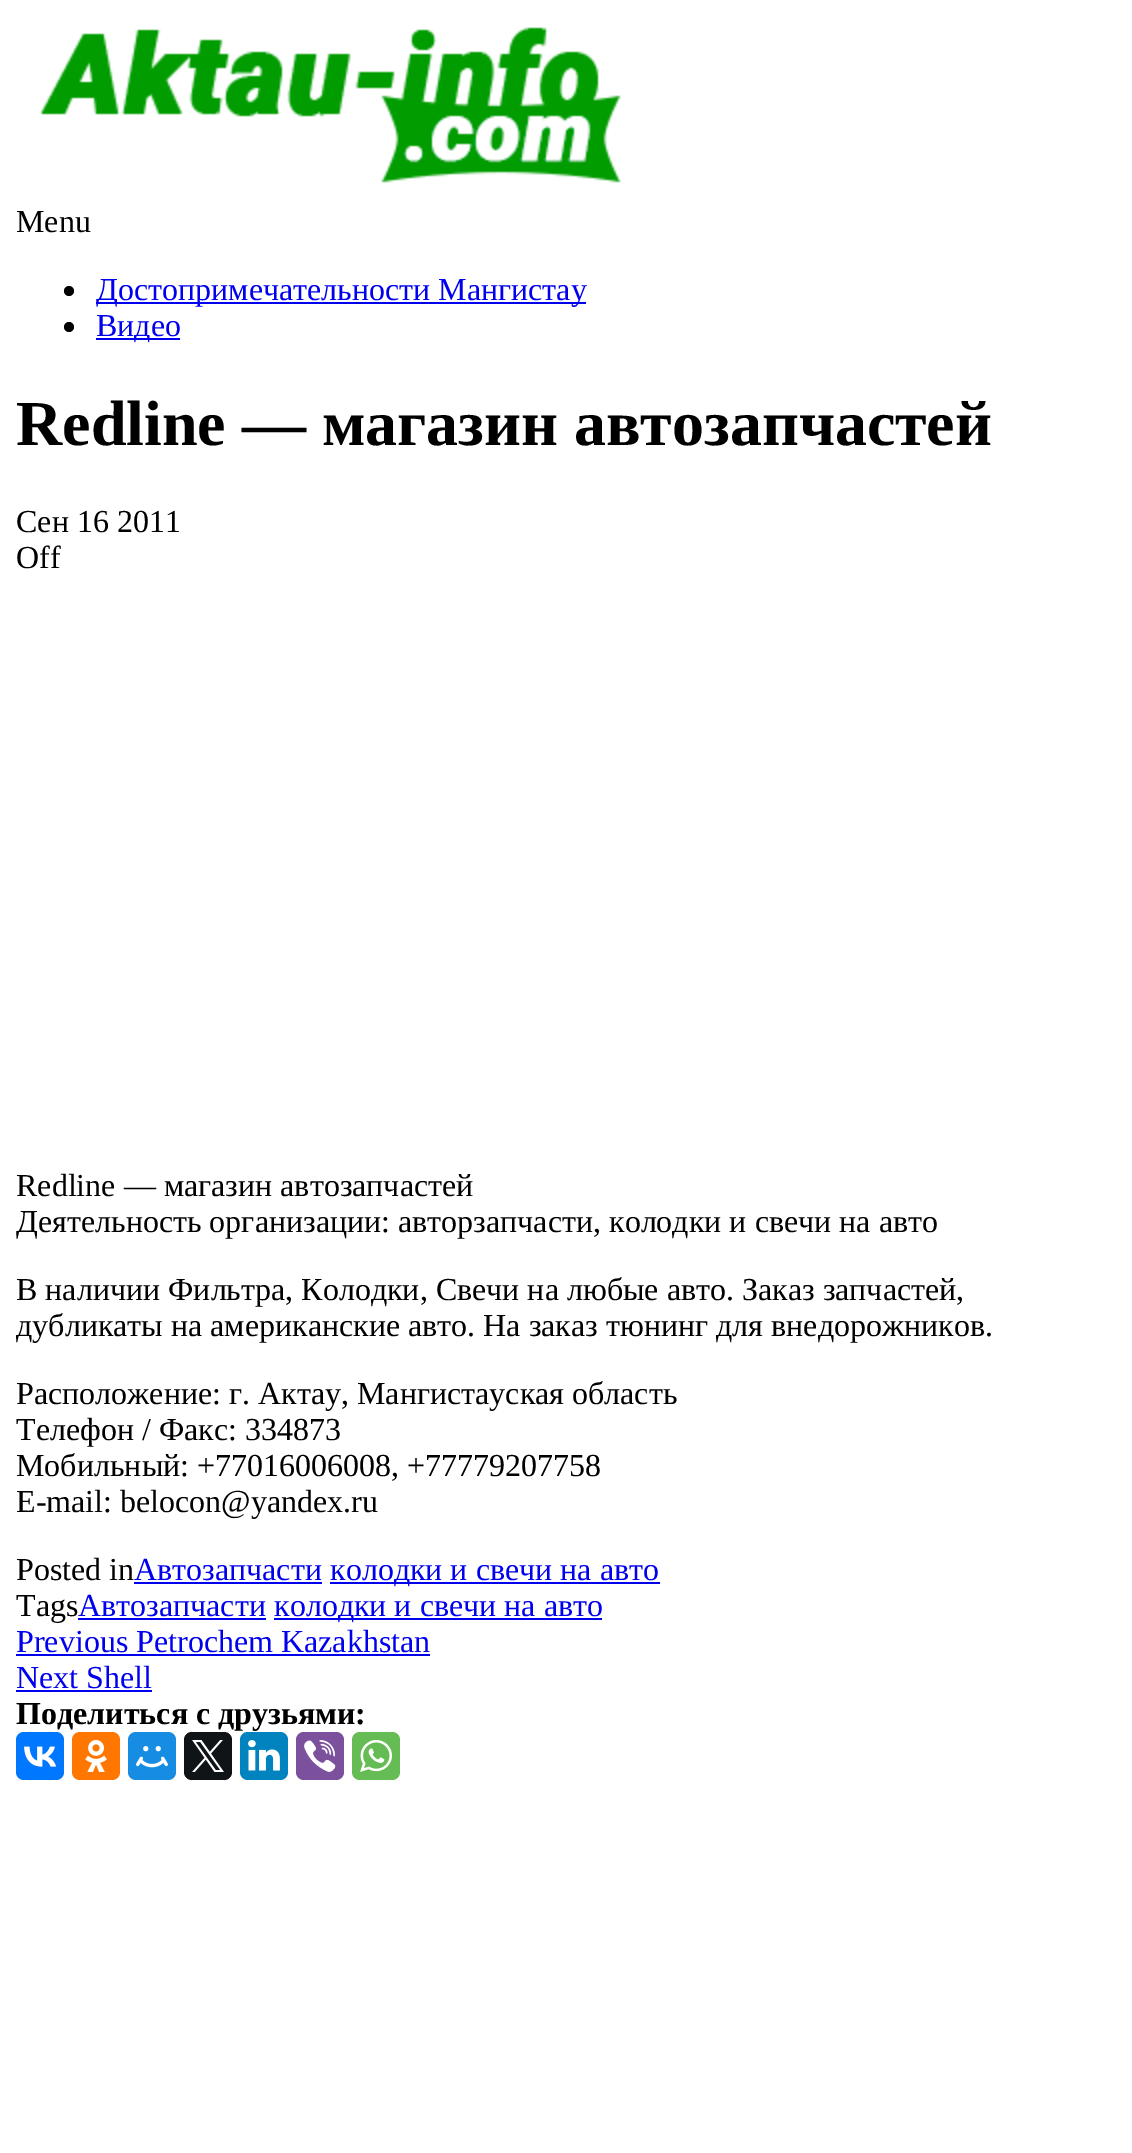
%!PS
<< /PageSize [1132 2153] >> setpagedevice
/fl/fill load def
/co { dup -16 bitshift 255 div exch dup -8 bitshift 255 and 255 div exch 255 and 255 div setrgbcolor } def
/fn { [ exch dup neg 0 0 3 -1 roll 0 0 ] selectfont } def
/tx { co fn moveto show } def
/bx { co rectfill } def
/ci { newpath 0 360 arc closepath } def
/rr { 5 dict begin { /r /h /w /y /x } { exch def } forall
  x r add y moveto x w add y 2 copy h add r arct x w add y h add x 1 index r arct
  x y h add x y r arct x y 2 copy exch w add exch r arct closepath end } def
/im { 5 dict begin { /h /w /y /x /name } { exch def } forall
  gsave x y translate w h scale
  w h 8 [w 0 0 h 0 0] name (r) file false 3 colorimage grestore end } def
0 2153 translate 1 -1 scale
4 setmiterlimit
0 0 1132 2153 16#FFFFFF bx
(media/1.raw) 39 27 582 156 im
16#000000 co
69 291 5 ci fl
96 302 490 2 16#0000EE bx
16#000000 co
69 327 5 ci fl
96 338 84 2 16#0000EE bx
134 1582 188 2 16#0000EE bx
330 1582 330 2 16#0000EE bx
78 1618 188 2 16#0000EE bx
274 1618 328 2 16#0000EE bx
16 1654 414 2 16#0000EE bx
16 1690 136 2 16#0000EE bx
16#0077FF co
16 1732 48 48 8 rr fl
(media/2.raw) 24 1746 33 21 im
16#FF7700 co
72 1732 48 48 8 rr fl
(media/3.raw) 85 1740 22 32 im
16#168DE2 co
128 1732 48 48 8 rr fl
(media/4.raw) 136 1746 32 22 im
16#0F1419 co
184 1732 48 48 8 rr fl
(media/5.raw) 192 1740 32 32 im
16#0083BE co
240 1732 48 48 8 rr fl
(media/6.raw) 248 1740 32 31 im
16#7B519D co
296 1732 48 48 8 rr fl
(media/7.raw) 304 1740 32 32 im
16#65BC54 co
352 1732 48 48 8 rr fl
(media/8.raw) 360 1740 32 32 im
(Menu) 16 232 /LiberationSerif-Regular 32 16#000000 tx
(Достопримечательности Мангистау) 96 300 /LiberationSerif-Regular 32 16#0000EE tx
(Видео) 96 336 /LiberationSerif-Regular 32 16#0000EE tx
(Redline — магазин автозапчастей) 16 445 /LiberationSerif-Bold 64 16#000000 tx
(Сен 16 2011) 16 532 /LiberationSerif-Regular 32 16#000000 tx
(Off) 16 568 /LiberationSerif-Regular 32 16#000000 tx
(Redline — магазин автозапчастей) 16 1196 /LiberationSerif-Regular 32 16#000000 tx
(Деятельность организации: авторзапчасти, колодки и свечи на авто) 16 1232 /LiberationSerif-Regular 32 16#000000 tx
(В наличии Фильтра, Колодки, Свечи на любые авто. Заказ запчастей,) 16 1300 /LiberationSerif-Regular 32 16#000000 tx
(дубликаты на американские авто. На заказ тюнинг для внедорожников.) 16 1336 /LiberationSerif-Regular 32 16#000000 tx
(Расположение: г. Актау, Мангистауская область) 16 1404 /LiberationSerif-Regular 32 16#000000 tx
(Телефон / Факс: 334873) 16 1440 /LiberationSerif-Regular 32 16#000000 tx
(Мобильный: +77016006008, +77779207758) 16 1476 /LiberationSerif-Regular 32 16#000000 tx
(E-mail: belocon@yandex.ru) 16 1512 /LiberationSerif-Regular 32 16#000000 tx
(Posted in) 16 1580 /LiberationSerif-Regular 32 16#000000 tx
(Автозапчасти) 134 1580 /LiberationSerif-Regular 32 16#0000EE tx
(колодки и свечи на авто) 330 1580 /LiberationSerif-Regular 32 16#0000EE tx
(Tags) 16 1616 /LiberationSerif-Regular 32 16#000000 tx
(Автозапчасти) 78 1616 /LiberationSerif-Regular 32 16#0000EE tx
(колодки и свечи на авто) 274 1616 /LiberationSerif-Regular 32 16#0000EE tx
(Previous Petrochem Kazakhstan) 16 1652 /LiberationSerif-Regular 32 16#0000EE tx
(Next Shell) 16 1688 /LiberationSerif-Regular 32 16#0000EE tx
(Поделиться с друзьями:) 16 1724 /LiberationSerif-Bold 32 16#000000 tx
showpage
